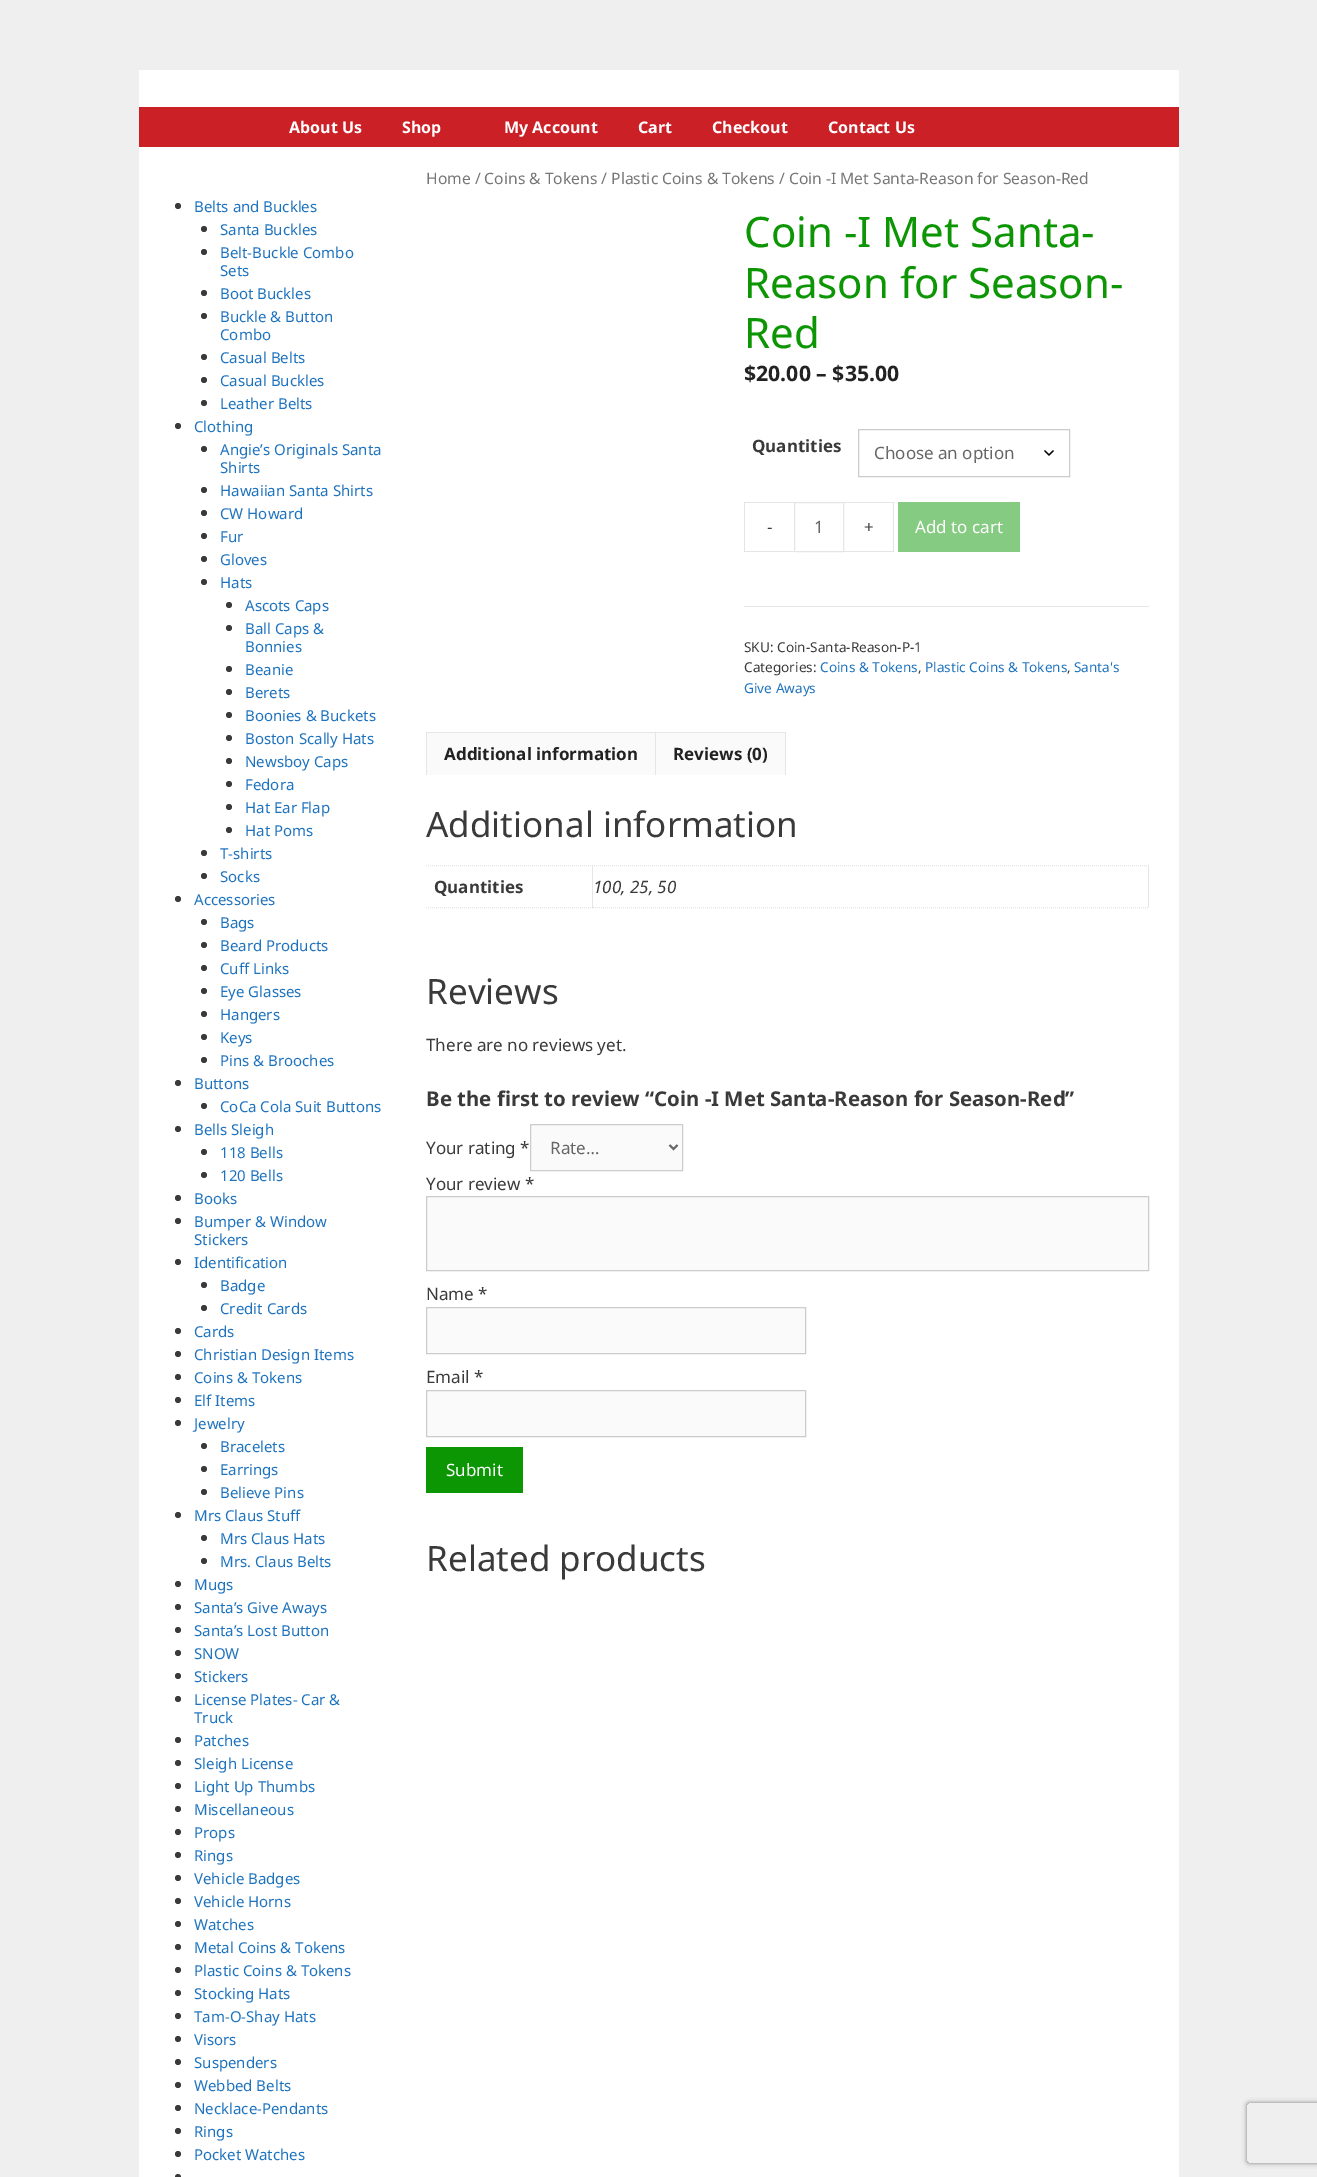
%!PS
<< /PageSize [1317 2177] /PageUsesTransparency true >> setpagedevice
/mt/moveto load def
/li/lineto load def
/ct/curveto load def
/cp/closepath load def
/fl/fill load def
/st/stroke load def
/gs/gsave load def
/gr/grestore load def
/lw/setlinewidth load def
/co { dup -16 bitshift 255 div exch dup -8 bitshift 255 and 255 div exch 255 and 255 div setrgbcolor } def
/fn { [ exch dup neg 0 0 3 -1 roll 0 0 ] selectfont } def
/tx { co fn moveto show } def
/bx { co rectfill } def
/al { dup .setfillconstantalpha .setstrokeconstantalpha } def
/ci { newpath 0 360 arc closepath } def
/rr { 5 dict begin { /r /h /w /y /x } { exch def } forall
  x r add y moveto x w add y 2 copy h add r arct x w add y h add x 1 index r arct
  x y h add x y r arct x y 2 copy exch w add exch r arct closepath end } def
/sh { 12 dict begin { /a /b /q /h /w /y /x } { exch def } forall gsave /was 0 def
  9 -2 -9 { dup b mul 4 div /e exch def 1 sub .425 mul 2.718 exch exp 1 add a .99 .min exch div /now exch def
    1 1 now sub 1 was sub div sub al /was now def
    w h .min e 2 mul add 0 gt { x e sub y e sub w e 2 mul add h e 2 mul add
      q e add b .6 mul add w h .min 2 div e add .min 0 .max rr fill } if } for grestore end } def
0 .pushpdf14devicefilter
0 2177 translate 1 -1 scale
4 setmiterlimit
0 0 1317 2177 16#EFEFEF bx
139 70 1040 37 16#FFFFFF bx
139 107 1040 40 16#CC2027 bx
139 147 1040 2030 16#FFFFFF bx
16#3A3A3A co
178 206 3 ci fl
204 229 3 ci fl
204 252 3 ci fl
204 293 3 ci fl
204 316 3 ci fl
204 357 3 ci fl
204 380 3 ci fl
204 403 3 ci fl
178 426 3 ci fl
204 449 3 ci fl
204 490 3 ci fl
204 513 3 ci fl
204 536 3 ci fl
204 559 3 ci fl
204 582 3 ci fl
229 605 3 ci fl
229 628 3 ci fl
229 669 3 ci fl
229 692 3 ci fl
229 715 3 ci fl
229 738 3 ci fl
229 761 3 ci fl
229 784 3 ci fl
229 807 3 ci fl
229 830 3 ci fl
204 853 3 ci fl
204 876 3 ci fl
178 899 3 ci fl
204 922 3 ci fl
204 945 3 ci fl
204 968 3 ci fl
204 991 3 ci fl
204 1014 3 ci fl
204 1037 3 ci fl
204 1060 3 ci fl
178 1083 3 ci fl
204 1106 3 ci fl
178 1129 3 ci fl
204 1152 3 ci fl
204 1175 3 ci fl
178 1198 3 ci fl
178 1221 3 ci fl
178 1262 3 ci fl
204 1285 3 ci fl
204 1308 3 ci fl
178 1331 3 ci fl
178 1354 3 ci fl
178 1377 3 ci fl
178 1400 3 ci fl
178 1423 3 ci fl
204 1446 3 ci fl
204 1469 3 ci fl
204 1492 3 ci fl
178 1515 3 ci fl
204 1538 3 ci fl
204 1561 3 ci fl
178 1584 3 ci fl
178 1607 3 ci fl
178 1630 3 ci fl
178 1653 3 ci fl
178 1676 3 ci fl
178 1699 3 ci fl
178 1740 3 ci fl
178 1763 3 ci fl
178 1786 3 ci fl
178 1809 3 ci fl
178 1832 3 ci fl
178 1855 3 ci fl
178 1878 3 ci fl
178 1901 3 ci fl
178 1924 3 ci fl
178 1947 3 ci fl
178 1970 3 ci fl
178 1993 3 ci fl
178 2016 3 ci fl
178 2039 3 ci fl
178 2062 3 ci fl
178 2085 3 ci fl
178 2108 3 ci fl
178 2131 3 ci fl
178 2154 3 ci fl
178 2177 3 ci fl
16#000000 co
1.3 lw
1 setlinecap
1 setlinejoin
1045 451 mt 1049 455 li 1053 451 li st
16#CCCCCC co
1 lw
0 setlinecap
0 setlinejoin
858.5 429.5 211 47 rectstroke
16#E6E6E6 co
744 502 mt 794 502 li 794 503 li 745 503 li cp 794 552 mt 744 552 li 745 551 li 794 551 li cp fl
0.1 al
16#000000 co
744 552 mt 744 502 li 745 503 li 745 551 li cp fl
1 al
16#E6E6E6 co
794.5 502.5 49 49 rectstroke
844 502 mt 894 502 li 893 503 li 844 503 li cp fl
0.1 al
16#000000 co
894 502 mt 894 552 li 893 551 li 893 503 li cp fl
894 552 mt 844 552 li 844 551 li 893 551 li cp fl
1 al
898 502 122 50 16#86CB82 bx
744 606 405 1 16#E6E6E6 bx
426 732 360 43 16#FAFAFA bx
16#E6E6E6 co
426 732 mt 656 732 li 655 733 li 427 733 li cp fl
0.08 al
16#000000 co
656 732 mt 656 775 li 655 775 li 655 733 li cp fl
426 775 mt 426 732 li 427 733 li 427 775 li cp fl
1 al
16#E6E6E6 co
656 732 mt 786 732 li 785 733 li 656 733 li cp fl
0.08 al
16#000000 co
786 732 mt 786 775 li 785 775 li 785 733 li cp fl
1 al
16#E6E6E6 co
[1 1] 0 setdash
426 865.5 mt 1149 865.5 li st
593 866 mt 593 908 li 592 907 li 592 866 li cp fl
0.1 al
16#000000 co
426 907.5 mt 593 907.5 li st
1 al
16#E6E6E6 co
1149 866 mt 1149 908 li 1148 907 li 1148 866 li cp fl
593 907.5 mt 1149 907.5 li st
16#FAFAFA co
530.5 1124.5 mt 682.5 1124.5 li 682.5 1170.5 li 530.5 1170.5 li cp gs fl gr
16#CCCCCC co
[] 0 setdash
st
16#666666 co
2 lw
669.5 1145 mt 673.5 1149 li 677.5 1145 li st
16#FAFAFA co
426.5 1196.5 mt 1148.5 1196.5 li 1148.5 1270.5 li 426.5 1270.5 li cp gs fl gr
16#CCCCCC co
1 lw
st
16#FAFAFA co
426.5 1307.5 mt 805.5 1307.5 li 805.5 1353.5 li 426.5 1353.5 li cp gs fl gr
16#CCCCCC co
st
16#FAFAFA co
426.5 1390.5 mt 805.5 1390.5 li 805.5 1436.5 li 426.5 1436.5 li cp gs fl gr
16#CCCCCC co
st
426 1447 97 46 16#0D9604 bx
gs
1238 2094 mt 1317 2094 li 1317 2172 li 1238 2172 li cp 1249 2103 mt 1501 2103 li 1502 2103 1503 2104 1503 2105 ct 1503 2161 li 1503 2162 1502 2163 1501 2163 ct 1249 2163 li 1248 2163 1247 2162 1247 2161 ct 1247 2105 li 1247 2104 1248 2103 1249 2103 ct cp eoclip newpath
16#808080 co
1247 2103 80 60 2 2.5 1 sh
gr
(About Us) 289 133 /NotoSans-Bold 16 16#FFFFFF tx
(Shop) 402 133 /NotoSans-Bold 16 16#FFFFFF tx
(My Account) 504 133 /NotoSans-Bold 16 16#FFFFFF tx
(Cart) 638 133 /NotoSans-Bold 16 16#FFFFFF tx
(Checkout) 712 133 /NotoSans-Bold 16 16#FFFFFF tx
(Contact Us) 828 133 /NotoSans-Bold 16 16#FFFFFF tx
(Belts and Buckles) 194 212 /NotoSans-Regular 15 16#1E73BE tx
(Santa Buckles) 220 235 /NotoSans-Regular 15 16#1E73BE tx
(Belt-Buckle Combo) 220 258 /NotoSans-Regular 15 16#1E73BE tx
(Sets) 220 276 /NotoSans-Regular 15 16#1E73BE tx
(Boot Buckles) 220 299 /NotoSans-Regular 15 16#1E73BE tx
(Buckle & Button) 220 322 /NotoSans-Regular 15 16#1E73BE tx
(Combo) 220 340 /NotoSans-Regular 15 16#1E73BE tx
(Casual Belts) 220 363 /NotoSans-Regular 15 16#1E73BE tx
(Casual Buckles) 220 386 /NotoSans-Regular 15 16#1E73BE tx
(Leather Belts) 220 409 /NotoSans-Regular 15 16#1E73BE tx
(Clothing) 194 432 /NotoSans-Regular 15 16#1E73BE tx
(Angie’s Originals Santa) 220 455 /NotoSans-Regular 15 16#1E73BE tx
(Shirts) 220 473 /NotoSans-Regular 15 16#1E73BE tx
(Hawaiian Santa Shirts) 220 496 /NotoSans-Regular 15 16#1E73BE tx
(CW Howard) 220 519 /NotoSans-Regular 15 16#1E73BE tx
(Fur) 220 542 /NotoSans-Regular 15 16#1E73BE tx
(Gloves) 220 565 /NotoSans-Regular 15 16#1E73BE tx
(Hats) 220 588 /NotoSans-Regular 15 16#1E73BE tx
(Ascots Caps) 245 611 /NotoSans-Regular 15 16#1E73BE tx
(Ball Caps &) 245 634 /NotoSans-Regular 15 16#1E73BE tx
(Bonnies) 245 652 /NotoSans-Regular 15 16#1E73BE tx
(Beanie) 245 675 /NotoSans-Regular 15 16#1E73BE tx
(Berets) 245 698 /NotoSans-Regular 15 16#1E73BE tx
(Boonies & Buckets) 245 721 /NotoSans-Regular 15 16#1E73BE tx
(Boston Scally Hats) 245 744 /NotoSans-Regular 15 16#1E73BE tx
(Newsboy Caps) 245 767 /NotoSans-Regular 15 16#1E73BE tx
(Fedora) 245 790 /NotoSans-Regular 15 16#1E73BE tx
(Hat Ear Flap) 245 813 /NotoSans-Regular 15 16#1E73BE tx
(Hat Poms) 245 836 /NotoSans-Regular 15 16#1E73BE tx
(T-shirts) 220 859 /NotoSans-Regular 15 16#1E73BE tx
(Socks) 220 882 /NotoSans-Regular 15 16#1E73BE tx
(Accessories) 194 905 /NotoSans-Regular 15 16#1E73BE tx
(Bags) 220 928 /NotoSans-Regular 15 16#1E73BE tx
(Beard Products) 220 951 /NotoSans-Regular 15 16#1E73BE tx
(Cuff Links) 220 974 /NotoSans-Regular 15 16#1E73BE tx
(Eye Glasses) 220 997 /NotoSans-Regular 15 16#1E73BE tx
(Hangers) 220 1020 /NotoSans-Regular 15 16#1E73BE tx
(Keys) 220 1043 /NotoSans-Regular 15 16#1E73BE tx
(Pins & Brooches) 220 1066 /NotoSans-Regular 15 16#1E73BE tx
(Buttons) 194 1089 /NotoSans-Regular 15 16#1E73BE tx
(CoCa Cola Suit Buttons) 220 1112 /NotoSans-Regular 15 16#1E73BE tx
(Bells Sleigh) 194 1135 /NotoSans-Regular 15 16#1E73BE tx
(118 Bells) 220 1158 /NotoSans-Regular 15 16#1E73BE tx
(120 Bells) 220 1181 /NotoSans-Regular 15 16#1E73BE tx
(Books) 194 1204 /NotoSans-Regular 15 16#1E73BE tx
(Bumper & Window) 194 1227 /NotoSans-Regular 15 16#1E73BE tx
(Stickers) 194 1245 /NotoSans-Regular 15 16#1E73BE tx
(Identification) 194 1268 /NotoSans-Regular 15 16#1E73BE tx
(Badge) 220 1291 /NotoSans-Regular 15 16#1E73BE tx
(Credit Cards) 220 1314 /NotoSans-Regular 15 16#1E73BE tx
(Cards) 194 1337 /NotoSans-Regular 15 16#1E73BE tx
(Christian Design Items) 194 1360 /NotoSans-Regular 15 16#1E73BE tx
(Coins & Tokens) 194 1383 /NotoSans-Regular 15 16#1E73BE tx
(Elf Items) 194 1406 /NotoSans-Regular 15 16#1E73BE tx
(Jewelry) 194 1429 /NotoSans-Regular 15 16#1E73BE tx
(Bracelets) 220 1452 /NotoSans-Regular 15 16#1E73BE tx
(Earrings) 220 1475 /NotoSans-Regular 15 16#1E73BE tx
(Believe Pins) 220 1498 /NotoSans-Regular 15 16#1E73BE tx
(Mrs Claus Stuff) 194 1521 /NotoSans-Regular 15 16#1E73BE tx
(Mrs Claus Hats) 220 1544 /NotoSans-Regular 15 16#1E73BE tx
(Mrs. Claus Belts) 220 1567 /NotoSans-Regular 15 16#1E73BE tx
(Mugs) 194 1590 /NotoSans-Regular 15 16#1E73BE tx
(Santa’s Give Aways) 194 1613 /NotoSans-Regular 15 16#1E73BE tx
(Santa’s Lost Button) 194 1636 /NotoSans-Regular 15 16#1E73BE tx
(SNOW) 194 1659 /NotoSans-Regular 15 16#1E73BE tx
(Stickers) 194 1682 /NotoSans-Regular 15 16#1E73BE tx
(License Plates- Car &) 194 1705 /NotoSans-Regular 15 16#1E73BE tx
(Truck) 194 1723 /NotoSans-Regular 15 16#1E73BE tx
(Patches) 194 1746 /NotoSans-Regular 15 16#1E73BE tx
(Sleigh License) 194 1769 /NotoSans-Regular 15 16#1E73BE tx
(Light Up Thumbs) 194 1792 /NotoSans-Regular 15 16#1E73BE tx
(Miscellaneous) 194 1815 /NotoSans-Regular 15 16#1E73BE tx
(Props) 194 1838 /NotoSans-Regular 15 16#1E73BE tx
(Rings) 194 1861 /NotoSans-Regular 15 16#1E73BE tx
(Vehicle Badges) 194 1884 /NotoSans-Regular 15 16#1E73BE tx
(Vehicle Horns) 194 1907 /NotoSans-Regular 15 16#1E73BE tx
(Watches) 194 1930 /NotoSans-Regular 15 16#1E73BE tx
(Metal Coins & Tokens) 194 1953 /NotoSans-Regular 15 16#1E73BE tx
(Plastic Coins & Tokens) 194 1976 /NotoSans-Regular 15 16#1E73BE tx
(Stocking Hats) 194 1999 /NotoSans-Regular 15 16#1E73BE tx
(Tam-O-Shay Hats) 194 2022 /NotoSans-Regular 15 16#1E73BE tx
(Visors) 194 2045 /NotoSans-Regular 15 16#1E73BE tx
(Suspenders) 194 2068 /NotoSans-Regular 15 16#1E73BE tx
(Webbed Belts) 194 2091 /NotoSans-Regular 15 16#1E73BE tx
(Necklace-Pendants) 194 2114 /NotoSans-Regular 15 16#1E73BE tx
(Rings) 194 2137 /NotoSans-Regular 15 16#1E73BE tx
(Pocket Watches) 194 2160 /NotoSans-Regular 15 16#1E73BE tx
(Home / Coins & Tokens / Plastic Coins & Tokens / Coin -I Met Santa-Reason for Season-Red) 426 184 /NotoSans-Regular 15.65 16#767676 tx
(Coin -I Met Santa-) 744 247 /NotoSans-Regular 42 16#0D9604 tx
(Reason for Season-) 744 298 /NotoSans-Regular 42 16#0D9604 tx
(Red) 744 348 /NotoSans-Regular 42 16#0D9604 tx
($20.00 – $35.00) 744 381 /NotoSans-Bold 21.25 16#222222 tx
(Quantities) 752 452 /NotoSans-Bold 17 16#3A3A3A tx
(Choose an option) 874 459 /NotoSans-Regular 17 16#666666 tx
(-) 767 533 /NotoSans-Regular 17 16#3A3A3A tx
(1) 814 533 /NotoSans-Regular 17 16#666666 tx
(+) 864 533 /NotoSans-Regular 17 16#3A3A3A tx
(Add to cart) 915 533 /NotoSans-Regular 17 16#FFFFFF tx
(SKU: Coin-Santa-Reason-P-1) 744 652 /NotoSans-Regular 13.6 16#3A3A3A tx
(Categories:) 744 672 /NotoSans-Regular 13.6 16#3A3A3A tx
(Coins & Tokens) 820 672 /NotoSans-Regular 13.6 16#1E73BE tx
(,) 918 672 /NotoSans-Regular 13.6 16#3A3A3A tx
(Plastic Coins & Tokens) 925 672 /NotoSans-Regular 13.6 16#1E73BE tx
(,) 1067 672 /NotoSans-Regular 13.6 16#3A3A3A tx
(Santa's) 1074 672 /NotoSans-Regular 13.6 16#1E73BE tx
(Give Aways) 744 693 /NotoSans-Regular 13.6 16#1E73BE tx
(Additional information) 444 760 /NotoSans-Bold 17 16#222222 tx
(Reviews \(0\)) 673 760 /NotoSans-Bold 17 16#222222 tx
(Additional information) 426 837 /NotoSans-Regular 35 16#3A3A3A tx
(Quantities) 434 893 /NotoSans-Bold 17 16#3A3A3A tx
(100, 25, 50) 593 893 /NotoSans-Italic 17 16#3A3A3A tx
(Reviews) 426 1004 /NotoSans-Regular 35 16#3A3A3A tx
(There are no reviews yet.) 426 1051 /NotoSans-Regular 17 16#3A3A3A tx
(Be the first to review “Coin -I Met Santa-Reason for Season-Red”) 426 1106 /NotoSans-Bold 20.4 16#3A3A3A tx
(Your rating *) 426 1154 /NotoSans-Regular 17 16#3A3A3A tx
(Rate…) 550 1154 /NotoSans-Regular 17 16#666666 tx
(Your review *) 426 1190 /NotoSans-Regular 17 16#3A3A3A tx
(Name *) 426 1300 /NotoSans-Regular 17 16#3A3A3A tx
(Email *) 426 1383 /NotoSans-Regular 17 16#3A3A3A tx
(Submit) 446 1476 /NotoSans-Regular 17 16#FFFFFF tx
(Related products) 426 1571 /NotoSans-Regular 35 16#3A3A3A tx
.poppdf14devicefilter showpage
